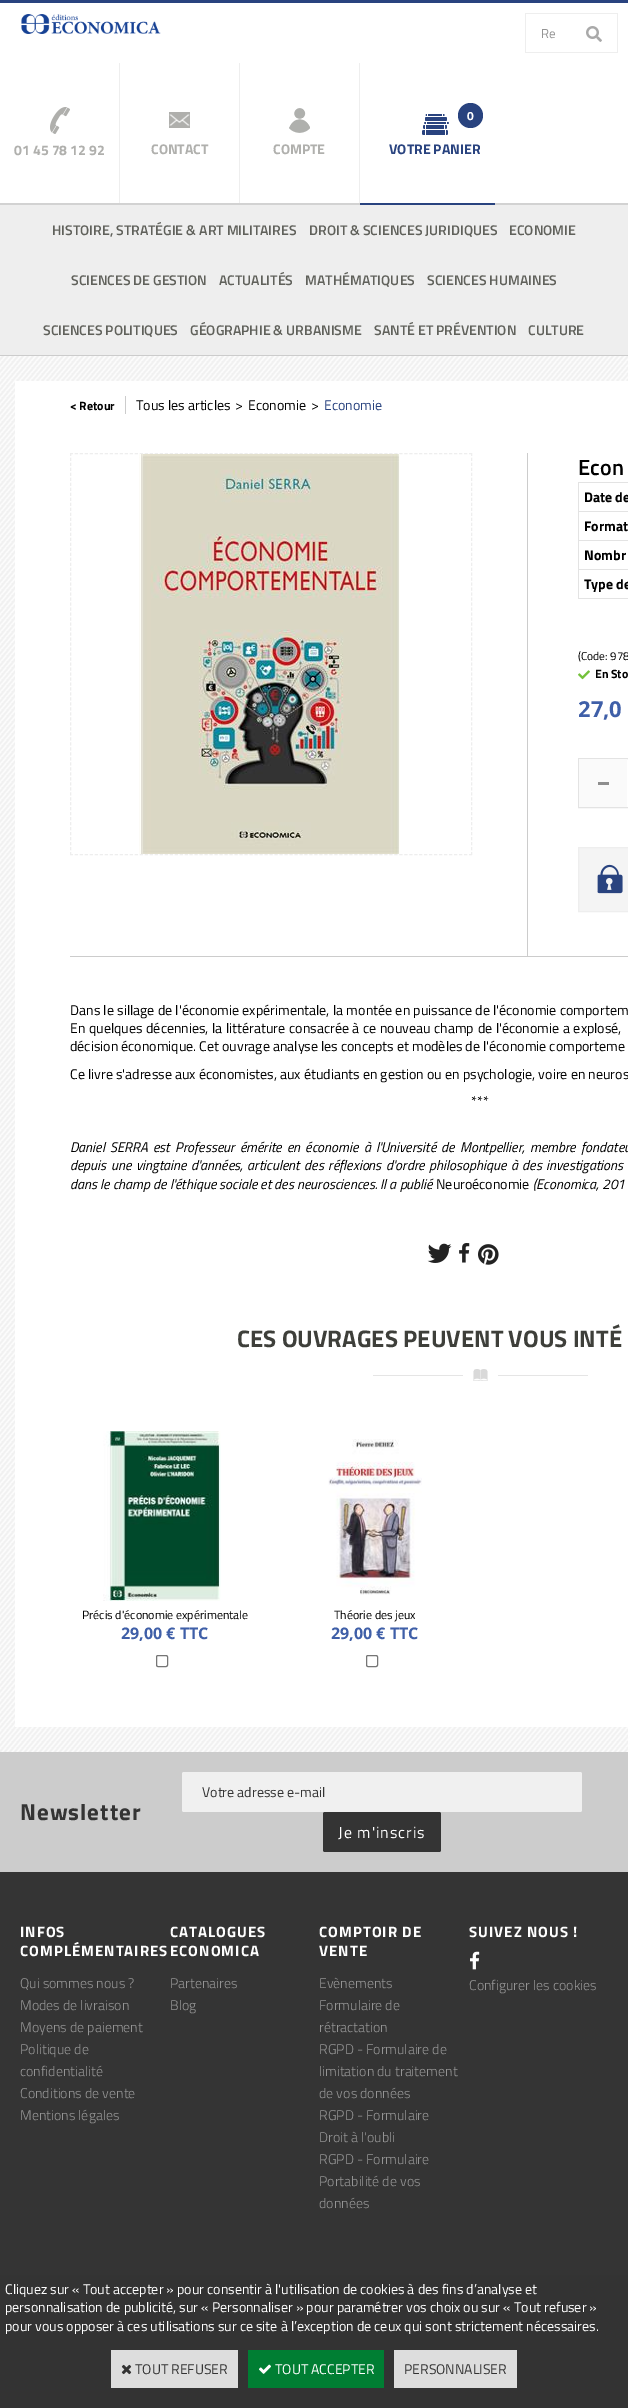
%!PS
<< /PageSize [628 2408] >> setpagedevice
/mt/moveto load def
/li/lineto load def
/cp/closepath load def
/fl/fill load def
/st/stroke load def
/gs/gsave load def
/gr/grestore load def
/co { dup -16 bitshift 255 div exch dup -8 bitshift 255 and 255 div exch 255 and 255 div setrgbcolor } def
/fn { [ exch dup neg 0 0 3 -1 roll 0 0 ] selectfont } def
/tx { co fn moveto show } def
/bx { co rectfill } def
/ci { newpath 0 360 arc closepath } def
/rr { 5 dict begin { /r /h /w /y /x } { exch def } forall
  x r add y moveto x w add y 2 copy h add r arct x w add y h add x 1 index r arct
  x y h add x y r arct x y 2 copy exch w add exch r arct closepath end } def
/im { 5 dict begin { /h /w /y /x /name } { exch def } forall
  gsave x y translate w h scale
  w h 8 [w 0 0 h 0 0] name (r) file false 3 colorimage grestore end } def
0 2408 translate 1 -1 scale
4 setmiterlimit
0 0 628 2408 16#FFFFFF bx
0 0 628 3 16#29437F bx
0 203 628 2 16#D2D2D2 bx
(media/1.raw) 21 14 140 20 im
525 13 93 1 16#EEEEEE bx
525 52 46 1 16#EEEEEE bx
525 13 1 40 16#EEEEEE bx
617 13 1 40 16#EEEEEE bx
571 52 47 1 16#EEEEEE bx
(media/2.raw) 586 26 16 16 im
119 63 1 140 16#EEEEEE bx
(media/3.raw) 50 107 20 27 im
239 63 1 140 16#EEEEEE bx
(media/4.raw) 169 112 21 16 im
359 63 1 140 16#EEEEEE bx
(media/5.raw) 289 108 21 25 im
360 203 135 2 16#29437F bx
470.5 115.5 12.5 ci fl
(media/6.raw) 422 114 27 21 im
0 205 628 150 16#EEEEEE bx
0 355 628 1 16#CCCCCC bx
(media/7.raw) 0 356 628 1396 im
15 381 613 1346 16#FFFFFF bx
125 396 1 18 16#CCCCCC bx
527 453 1 504 16#CCCCCC bx
70 956 558 1 16#CCCCCC bx
16#EEEEEE co
[3 1.99] 0 setdash
70 453.5 mt 472 453.5 li st
471.5 453 mt 471.5 855 li st
70 854.5 mt 472 854.5 li st
70.5 453 mt 70.5 855 li st
(media/8.raw) 139 454 261 400 im
578 482 50 1 16#E3E3E3 bx
578 511 50 1 16#E3E3E3 bx
578 483 1 29 16#E3E3E3 bx
578 540 50 1 16#E3E3E3 bx
578 512 1 29 16#E3E3E3 bx
578 569 50 1 16#E3E3E3 bx
578 541 1 29 16#E3E3E3 bx
578 598 50 1 16#E3E3E3 bx
578 570 1 29 16#E3E3E3 bx
(media/9.raw) 578 670 12 10 im
[] 0 setdash
578.5 758.5 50 49 rectstroke
579 759 48 48 16#FAFAFA bx
598 782 11 3 16#8E8E8E bx
16#F4F4F4 co
578.5 847.5 mt 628.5 847.5 li 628.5 911.5 li 578.5 911.5 li cp gs fl gr
16#EEEEEE co
st
(media/10.raw) 597 864 26 30 im
(media/11.raw) 427 1243 25 20 im
(media/12.raw) 459 1243 11 20 im
(media/13.raw) 478 1244 21 21 im
(media/14.raw) 373 1369 215 12 im
(media/15.raw) 103 1431 118 170 im
16#767676 co
156.5 1655.5 11 11 1.5 rr st
(media/16.raw) 328 1439 94 156 im
366.5 1655.5 11 11 1.5 rr st
0 1872 628 403 16#343434 bx
0 1752 628 120 16#CCCCCC bx
16#F0F0F0 co
182 1772 400 40 2 rr fl
16#343434 co
323 1812 118 40 2 rr fl
(media/17.raw) 470 1951 10 19 im
0 2275 628 133 16#333333 bx
111 2350 127 38 16#DDDDDD bx
(media/18.raw) 121 2364 11 11 im
248 2350 136 38 16#007E33 bx
(media/19.raw) 259 2364 12 10 im
394 2350 123 38 16#DDDDDD bx
(Re) 541 38 /TitilliumWeb-Regular 13 16#949494 tx
(01 45 78 12 92) 14 155 /TitilliumWeb-Bold 14 16#B0B0AD tx
(CONTACT) 151 154 /TitilliumWeb-Bold 14 16#B0B0AD tx
(COMPTE) 273 154 /TitilliumWeb-Bold 14 16#B0B0AD tx
(0) 467 120 /TitilliumWeb-Bold 12 16#FFFFFF tx
(VOTRE PANIER) 389 154 /TitilliumWeb-Bold 14 16#29437F tx
(HISTOIRE, STRATÉGIE & ART MILITAIRES) 52 235 /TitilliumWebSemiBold-SemiBold 14 16#60615B tx
(DROIT & SCIENCES JURIDIQUES) 309 235 /TitilliumWebSemiBold-SemiBold 14 16#60615B tx
(ECONOMIE) 509 235 /TitilliumWebSemiBold-SemiBold 14 16#60615B tx
(SCIENCES DE GESTION) 71 285 /TitilliumWebSemiBold-SemiBold 14 16#60615B tx
(ACTUALITÉS) 219 285 /TitilliumWebSemiBold-SemiBold 14 16#60615B tx
(MATHÉMATIQUES) 305 285 /TitilliumWebSemiBold-SemiBold 14 16#60615B tx
(SCIENCES HUMAINES) 427 285 /TitilliumWebSemiBold-SemiBold 14 16#60615B tx
(SCIENCES POLITIQUES) 43 335 /TitilliumWebSemiBold-SemiBold 14 16#60615B tx
(GÉOGRAPHIE & URBANISME) 190 335 /TitilliumWebSemiBold-SemiBold 14 16#60615B tx
(SANTÉ ET PRÉVENTION) 374 335 /TitilliumWebSemiBold-SemiBold 14 16#60615B tx
(CULTURE) 528 335 /TitilliumWebSemiBold-SemiBold 14 16#60615B tx
(< Retour) 70 410 /TitilliumWeb-Bold 12 16#000000 tx
(Tous les articles) 136 410 /TitilliumWeb-Regular 14 16#000000 tx
(>) 235 410 /TitilliumWeb-Regular 14 16#000000 tx
(Economie) 248 410 /TitilliumWeb-Regular 14 16#000000 tx
(>) 311 410 /TitilliumWeb-Regular 14 16#000000 tx
(Economie) 324 410 /TitilliumWeb-Regular 14 16#29437F tx
(Econ) 578 475 /TitilliumWebSemiBold-SemiBold 22 16#000000 tx
(Date de) 584 502 /TitilliumWeb-Bold 14 16#000000 tx
(Format) 584 531 /TitilliumWeb-Bold 14 16#000000 tx
(Nombr) 584 560 /TitilliumWeb-Bold 14 16#000000 tx
(Type de) 584 589 /TitilliumWeb-Bold 14 16#000000 tx
(\(Code: 978) 578 660 /TitilliumWeb-Regular 11.5 16#000000 tx
(En Sto) 595 678 /TitilliumWeb-Bold 12 16#000000 tx
(27,0) 578 717 /OpenSans-Bold 22 16#3F5FA8 tx
/TitilliumWeb-Regular 14 fn
16#000000 co
70 1015 mt .25 0 32 (Dans le sillage de l'économie expérimentale, la montée en puissance de l'économie comportem) widthshow
70 1033 mt .6 0 32 (En quelques décennies, la littérature consacrée à ce nouveau champ de l'économie a explosé,) widthshow
(décision économique. Cet ouvrage analyse les concepts et modèles de l'économie comporteme) 70 1051 /TitilliumWeb-Regular 14 16#000000 tx
(Ce livre s'adresse aux économistes, aux étudiants en gestion ou en psychologie, voire en neuros) 70 1079 /TitilliumWeb-Regular 14 16#000000 tx
(***) 471 1106 /TitilliumWeb-Regular 14 16#000000 tx
/TitilliumWeb-Italic 14 fn
70 1152 mt 2 0 32 (Daniel SERRA) widthshow
153 1152 mt 2 0 32 (est Professeur émérite en économie à l'Université de Montpellier, membre fondateu) widthshow
70 1170 mt 1.5 0 32 (depuis une vingtaine d'années, articulent des réflexions d'ordre philosophique à des investigations) widthshow
(dans le champ de l'éthique sociale et des neurosciences. Il a publié) 70 1189 /TitilliumWeb-Italic 14 16#000000 tx
(Neuroéconomie) 436 1189 /TitilliumWeb-Regular 14 16#000000 tx
(\(Economica, 201) 533 1189 /TitilliumWeb-Italic 14 16#000000 tx
(CES OUVRAGES PEUVENT VOUS INTÉ) 237 1347 /TitilliumWeb-Bold 24 16#3E3F3A tx
(Précis d'économie expérimentale) 82 1619 /TitilliumWeb-Regular 12 16#000000 tx
(29,00 € TTC) 121 1639 /OpenSans-Bold 16 16#3F5FA8 tx
(Théorie des jeux) 334 1619 /TitilliumWeb-Regular 12 16#000000 tx
(29,00 € TTC) 331 1639 /OpenSans-Bold 16 16#3F5FA8 tx
/TitilliumWeb-Bold 23 fn
16#343434 co
20 1820 mt 1 0 (Newsletter) ashow
(Votre adresse e-mail) 202 1797 /TitilliumWeb-Regular 14 16#343434 tx
/TitilliumWeb-Regular 16 fn
16#FFFFFF co
338 1838 mt 1 0 (Je m'inscris) ashow
/TitilliumWeb-Bold 15 fn
20 1937 mt 1 0 (INFOS) ashow
20 1956 mt 1 0 (COMPLÉMENTAIRES) ashow
(Qui sommes nous ?) 20 1988 /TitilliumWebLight-Light 14 16#949494 tx
(Modes de livraison) 20 2010 /TitilliumWebLight-Light 14 16#949494 tx
(Moyens de paiement) 20 2032 /TitilliumWebLight-Light 14 16#949494 tx
(Politique de) 20 2054 /TitilliumWebLight-Light 14 16#949494 tx
(confidentialité) 20 2076 /TitilliumWebLight-Light 14 16#949494 tx
(Conditions de vente) 20 2098 /TitilliumWebLight-Light 14 16#949494 tx
(Mentions légales) 20 2120 /TitilliumWebLight-Light 14 16#949494 tx
/TitilliumWeb-Bold 15 fn
16#FFFFFF co
170 1937 mt 1 0 (CATALOGUES) ashow
170 1956 mt 1 0 (ECONOMICA) ashow
(Partenaires) 170 1988 /TitilliumWebLight-Light 14 16#949494 tx
(Blog) 170 2010 /TitilliumWebLight-Light 14 16#949494 tx
/TitilliumWeb-Bold 15 fn
16#FFFFFF co
319 1937 mt 1 0 (COMPTOIR DE) ashow
319 1956 mt 1 0 (VENTE) ashow
(Evènements) 319 1988 /TitilliumWebLight-Light 14 16#949494 tx
(Formulaire de) 319 2010 /TitilliumWebLight-Light 14 16#949494 tx
(rétractation) 319 2032 /TitilliumWebLight-Light 14 16#949494 tx
(RGPD - Formulaire de) 319 2054 /TitilliumWebLight-Light 14 16#949494 tx
(limitation du traitement) 319 2076 /TitilliumWebLight-Light 14 16#949494 tx
(de vos données) 319 2098 /TitilliumWebLight-Light 14 16#949494 tx
(RGPD - Formulaire) 319 2120 /TitilliumWebLight-Light 14 16#949494 tx
(Droit à l'oubli) 319 2142 /TitilliumWebLight-Light 14 16#949494 tx
(RGPD - Formulaire) 319 2164 /TitilliumWebLight-Light 14 16#949494 tx
(Portabilité de vos) 319 2186 /TitilliumWebLight-Light 14 16#949494 tx
(données) 319 2208 /TitilliumWebLight-Light 14 16#949494 tx
/TitilliumWeb-Bold 15 fn
16#FFFFFF co
469 1937 mt 1 0 (SUIVEZ NOUS !) ashow
(Configurer les cookies) 469 1990 /TitilliumWebLight-Light 14 16#949494 tx
(Cliquez sur « Tout accepter » pour consentir à l'utilisation de cookies à des fins d’analyse et) 5 2294 /TitilliumWeb-Regular 14 16#FFFFFF tx
(personnalisation de publicité, sur « Personnaliser » pour paramétrer vos choix ou sur « Tout refuser ») 5 2312 /TitilliumWeb-Regular 14 16#FFFFFF tx
(pour vous opposer à ces utilisations sur ce site à l’exception de ceux qui sont strictement nécessaires.) 5 2331 /TitilliumWeb-Regular 14 16#FFFFFF tx
(TOUT REFUSER) 135 2374 /TitilliumWeb-Regular 14 16#343434 tx
(TOUT ACCEPTER) 275 2374 /TitilliumWeb-Regular 14 16#FFFFFF tx
(PERSONNALISER) 404 2374 /TitilliumWeb-Regular 14 16#343434 tx
showpage
